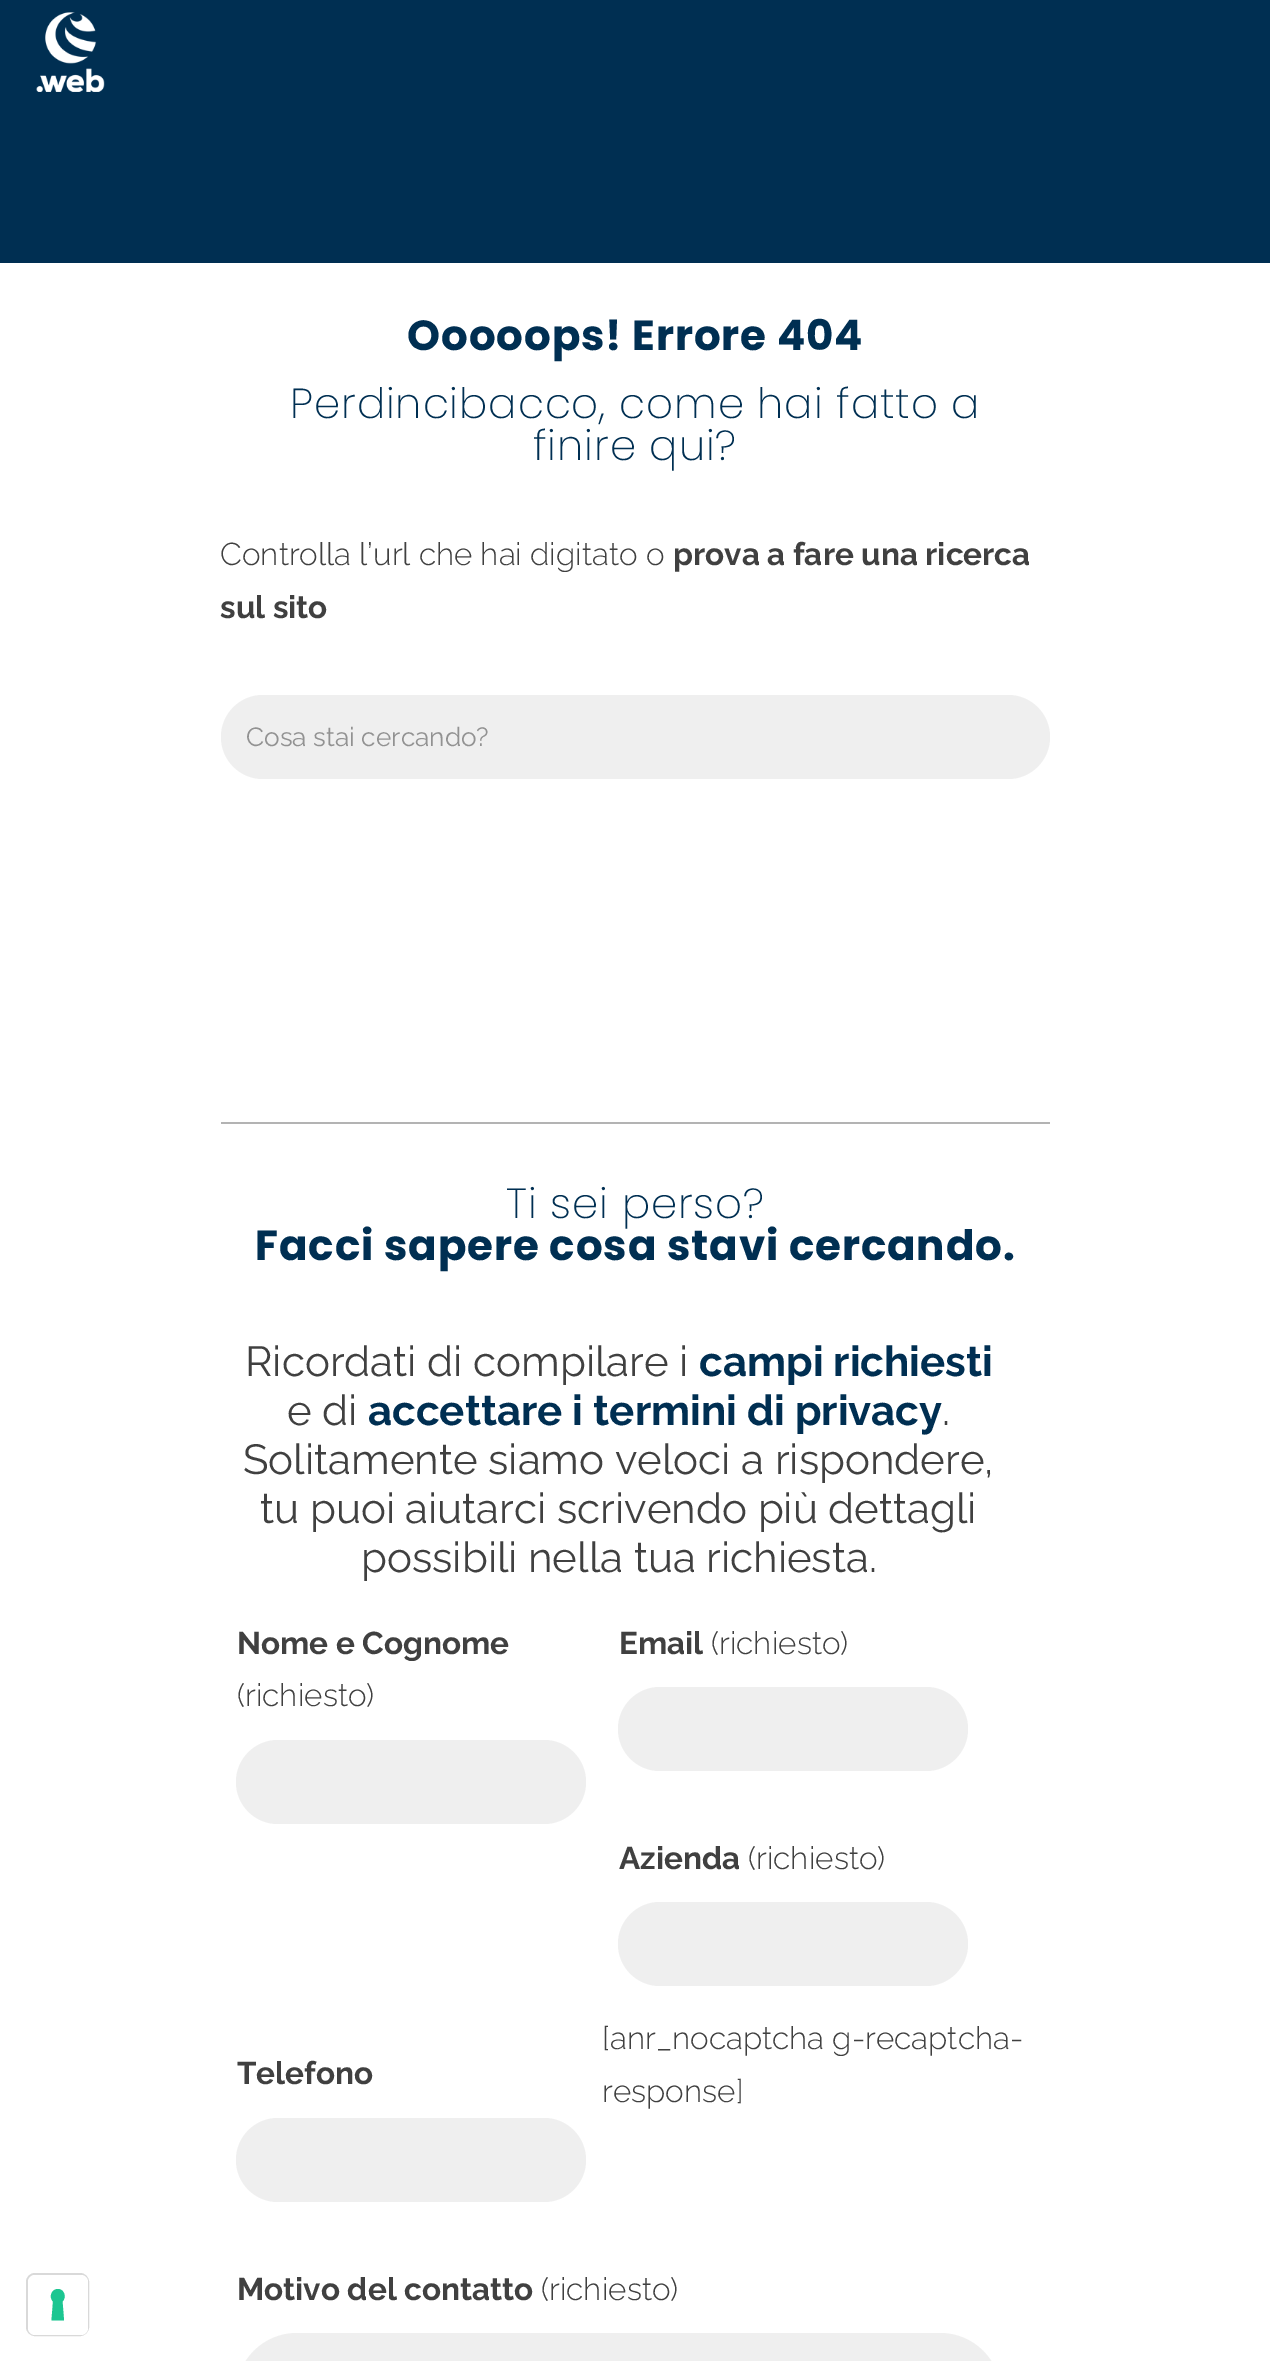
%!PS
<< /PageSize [1270 2361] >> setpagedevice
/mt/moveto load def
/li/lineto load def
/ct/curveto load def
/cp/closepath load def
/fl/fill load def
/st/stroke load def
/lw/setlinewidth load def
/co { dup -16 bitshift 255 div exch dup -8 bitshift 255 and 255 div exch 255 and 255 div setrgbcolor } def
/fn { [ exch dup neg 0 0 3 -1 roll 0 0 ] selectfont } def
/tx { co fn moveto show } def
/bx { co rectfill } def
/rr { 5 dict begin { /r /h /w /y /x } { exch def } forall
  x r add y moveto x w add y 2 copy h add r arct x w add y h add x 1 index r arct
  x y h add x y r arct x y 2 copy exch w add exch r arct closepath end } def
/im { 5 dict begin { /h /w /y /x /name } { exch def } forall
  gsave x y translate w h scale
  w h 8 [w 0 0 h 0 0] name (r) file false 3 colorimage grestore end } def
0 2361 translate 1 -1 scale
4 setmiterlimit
0 0 1270 2361 16#FFFFFF bx
16#D9D9D9 co
2 lw
27 2274 61 61 8 rr st
16#FFFFFF co
28 2275 60 60 7 rr fl
16#1CC691 co
58 2289 mt 64 2289 67 2297 62.5 2301.5 ct 64 2320.5 li 51.5 2320.5 li 53 2301.5 li 48.5 2297 51.5 2289 58 2289 ct cp eofill
0 0 1270 263 16#002F52 bx
(media/1.raw) 36 12 69 80 im
16#EFEFEF co
221 695 829 84 42 rr fl
221 1122 829 2 16#B3B3B3 bx
16#EFEFEF co
236 1740 350 84 42 rr fl
618 1687 350 84 42 rr fl
618 1902 350 84 42 rr fl
236 2118 350 84 42 rr fl
236 2333 765 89 61 rr fl
/Poppins-Bold 42 fn
16#002F52 co
407 350 mt .9 0 (Ooooops! Errore 404) ashow
/Poppins-ExtraLight 42 fn
290 418 mt .9 0 (Perdincibacco, come hai fatto a) ashow
533 460 mt .9 0 (finire qui?) ashow
(Controlla l’url che hai digitato o) 220 565 /Raleway-Light 31.5 16#404040 tx
(prova a fare una ricerca) 673 565 /Raleway-Bold 31.5 16#404040 tx
(sul sito) 220 618 /Raleway-Bold 31.5 16#404040 tx
(Cosa stai cercando?) 246 746 /Raleway-Regular 26.25 16#929292 tx
/Poppins-ExtraLight 42 fn
16#002F52 co
506 1218 mt .9 0 (Ti sei perso?) ashow
/Poppins-Bold 42 fn
255 1260 mt .9 0 (Facci sapere cosa stavi cercando.) ashow
(Ricordati di compilare i) 245 1376 /Raleway-Regular 42 16#404040 tx
(campi richiesti) 699 1376 /Raleway-Bold 42 16#002F52 tx
(e di) 287 1425 /Raleway-Regular 42 16#404040 tx
(accettare i termini di privacy) 368 1425 /Raleway-Bold 42 16#002F52 tx
(.) 942 1425 /Raleway-Regular 42 16#404040 tx
(Solitamente siamo veloci a rispondere,) 243 1474 /Raleway-Regular 42 16#404040 tx
(tu puoi aiutarci scrivendo più dettagli) 260 1523 /Raleway-Regular 42 16#404040 tx
(possibili nella tua richiesta.) 361 1572 /Raleway-Regular 42 16#404040 tx
(Nome e Cognome) 237 1654 /Raleway-Bold 31.5 16#404040 tx
(\(richiesto\)) 237 1706 /Raleway-Light 31.5 16#404040 tx
(Email) 619 1654 /Raleway-Bold 31.5 16#404040 tx
(\(richiesto\)) 711 1654 /Raleway-Light 31.5 16#404040 tx
(Azienda) 619 1869 /Raleway-Bold 31.5 16#404040 tx
(\(richiesto\)) 748 1869 /Raleway-Light 31.5 16#404040 tx
(Telefono) 237 2084 /Raleway-Bold 31.5 16#404040 tx
([anr_nocaptcha g-recaptcha-) 602 2049 /Raleway-Light 31.5 16#404040 tx
(response]) 602 2102 /Raleway-Light 31.5 16#404040 tx
(Motivo del contatto) 237 2300 /Raleway-Bold 31.5 16#404040 tx
(\(richiesto\)) 541 2300 /Raleway-Light 31.5 16#404040 tx
showpage
